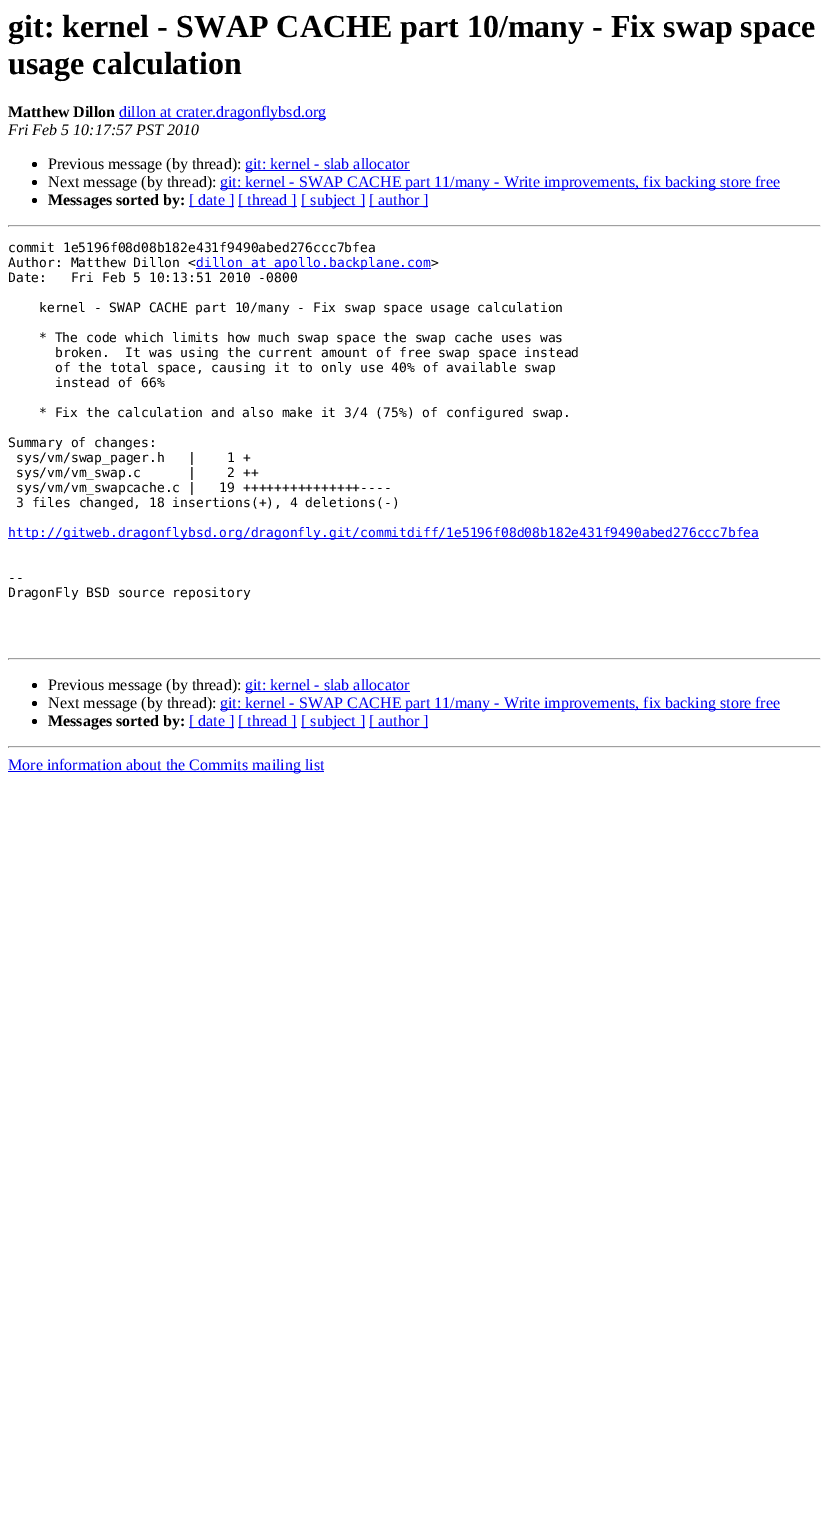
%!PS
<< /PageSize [829 1516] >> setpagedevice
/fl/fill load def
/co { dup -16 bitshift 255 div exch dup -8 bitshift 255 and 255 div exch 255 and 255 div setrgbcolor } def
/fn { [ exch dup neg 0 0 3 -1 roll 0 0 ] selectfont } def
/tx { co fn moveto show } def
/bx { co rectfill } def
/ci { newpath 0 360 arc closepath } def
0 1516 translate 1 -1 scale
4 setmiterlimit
0 0 829 1516 16#FFFFFF bx
119 118 207 1 16#0000EE bx
16#000000 co
34.5 164.5 2.5 ci fl
245 170 165 1 16#0000EE bx
16#000000 co
34.5 182.5 2.5 ci fl
220 188 560 1 16#0000EE bx
16#000000 co
34.5 200.5 2.5 ci fl
189 206 45 1 16#0000EE bx
238 206 59 1 16#0000EE bx
301 206 64 1 16#0000EE bx
369 206 59 1 16#0000EE bx
8 225 813 1 16#9F9F9F bx
820 225 1 2 16#EEEEEE bx
8 226 813 1 16#EEEEEE bx
8 225 1 2 16#9F9F9F bx
196 268 235 1 16#0000EE bx
8 538 751 1 16#0000EE bx
8 658 813 1 16#9F9F9F bx
820 658 1 2 16#EEEEEE bx
8 659 813 1 16#EEEEEE bx
8 658 1 2 16#9F9F9F bx
16#000000 co
34.5 685.5 2.5 ci fl
245 691 165 1 16#0000EE bx
16#000000 co
34.5 703.5 2.5 ci fl
220 709 560 1 16#0000EE bx
16#000000 co
34.5 721.5 2.5 ci fl
189 727 45 1 16#0000EE bx
238 727 59 1 16#0000EE bx
301 727 64 1 16#0000EE bx
369 727 59 1 16#0000EE bx
8 746 813 1 16#9F9F9F bx
820 746 1 2 16#EEEEEE bx
8 747 813 1 16#EEEEEE bx
8 746 1 2 16#9F9F9F bx
8 771 316 1 16#0000EE bx
(git: kernel - SWAP CACHE part 10/many - Fix swap space) 8 37 /LiberationSerif-Bold 32 16#000000 tx
(usage calculation) 8 74 /LiberationSerif-Bold 32 16#000000 tx
(Matthew Dillon) 8 117 /LiberationSerif-Bold 16 16#000000 tx
(dillon at crater.dragonflybsd.org) 119 117 /LiberationSerif-Regular 16 16#0000EE tx
(Fri Feb 5 10:17:57 PST 2010) 8 135 /LiberationSerif-Italic 16 16#000000 tx
(Previous message \(by thread\):) 48 169 /LiberationSerif-Regular 16 16#000000 tx
(git: kernel - slab allocator) 245 169 /LiberationSerif-Regular 16 16#0000EE tx
(Next message \(by thread\):) 48 187 /LiberationSerif-Regular 16 16#000000 tx
(git: kernel - SWAP CACHE part 11/many - Write improvements, fix backing store free) 220 187 /LiberationSerif-Regular 16 16#0000EE tx
(Messages sorted by:) 48 205 /LiberationSerif-Bold 16 16#000000 tx
([ date ]) 189 205 /LiberationSerif-Regular 16 16#0000EE tx
([ thread ]) 238 205 /LiberationSerif-Regular 16 16#0000EE tx
([ subject ]) 301 205 /LiberationSerif-Regular 16 16#0000EE tx
([ author ]) 369 205 /LiberationSerif-Regular 16 16#0000EE tx
(commit 1e5196f08d08b182e431f9490abed276ccc7bfea) 8 252 /DejaVuSansMono-Regular 13 16#000000 tx
(Author: Matthew Dillon <) 8 267 /DejaVuSansMono-Regular 13 16#000000 tx
(dillon at apollo.backplane.com) 196 267 /DejaVuSansMono-Regular 13 16#0000EE tx
(>) 431 267 /DejaVuSansMono-Regular 13 16#000000 tx
(Date:   Fri Feb 5 10:13:51 2010 -0800) 8 282 /DejaVuSansMono-Regular 13 16#000000 tx
(kernel - SWAP CACHE part 10/many - Fix swap space usage calculation) 39 312 /DejaVuSansMono-Regular 13 16#000000 tx
(* The code which limits how much swap space the swap cache uses was) 39 342 /DejaVuSansMono-Regular 13 16#000000 tx
(broken.  It was using the current amount of free swap space instead) 55 357 /DejaVuSansMono-Regular 13 16#000000 tx
(of the total space, causing it to only use 40% of available swap) 55 372 /DejaVuSansMono-Regular 13 16#000000 tx
(instead of 66%) 55 387 /DejaVuSansMono-Regular 13 16#000000 tx
(* Fix the calculation and also make it 3/4 \(75%\) of configured swap.) 39 417 /DejaVuSansMono-Regular 13 16#000000 tx
(Summary of changes:) 8 447 /DejaVuSansMono-Regular 13 16#000000 tx
(sys/vm/swap_pager.h   |    1 +) 16 462 /DejaVuSansMono-Regular 13 16#000000 tx
(sys/vm/vm_swap.c      |    2 ++) 16 477 /DejaVuSansMono-Regular 13 16#000000 tx
(sys/vm/vm_swapcache.c |   19 +++++++++++++++----) 16 492 /DejaVuSansMono-Regular 13 16#000000 tx
(3 files changed, 18 insertions\(+\), 4 deletions\(-\)) 16 507 /DejaVuSansMono-Regular 13 16#000000 tx
(http://gitweb.dragonflybsd.org/dragonfly.git/commitdiff/1e5196f08d08b182e431f9490abed276ccc7bfea) 8 537 /DejaVuSansMono-Regular 13 16#0000EE tx
(--) 8 582 /DejaVuSansMono-Regular 13 16#000000 tx
(DragonFly BSD source repository) 8 597 /DejaVuSansMono-Regular 13 16#000000 tx
(Previous message \(by thread\):) 48 690 /LiberationSerif-Regular 16 16#000000 tx
(git: kernel - slab allocator) 245 690 /LiberationSerif-Regular 16 16#0000EE tx
(Next message \(by thread\):) 48 708 /LiberationSerif-Regular 16 16#000000 tx
(git: kernel - SWAP CACHE part 11/many - Write improvements, fix backing store free) 220 708 /LiberationSerif-Regular 16 16#0000EE tx
(Messages sorted by:) 48 726 /LiberationSerif-Bold 16 16#000000 tx
([ date ]) 189 726 /LiberationSerif-Regular 16 16#0000EE tx
([ thread ]) 238 726 /LiberationSerif-Regular 16 16#0000EE tx
([ subject ]) 301 726 /LiberationSerif-Regular 16 16#0000EE tx
([ author ]) 369 726 /LiberationSerif-Regular 16 16#0000EE tx
(More information about the Commits mailing list) 8 770 /LiberationSerif-Regular 16 16#0000EE tx
showpage
